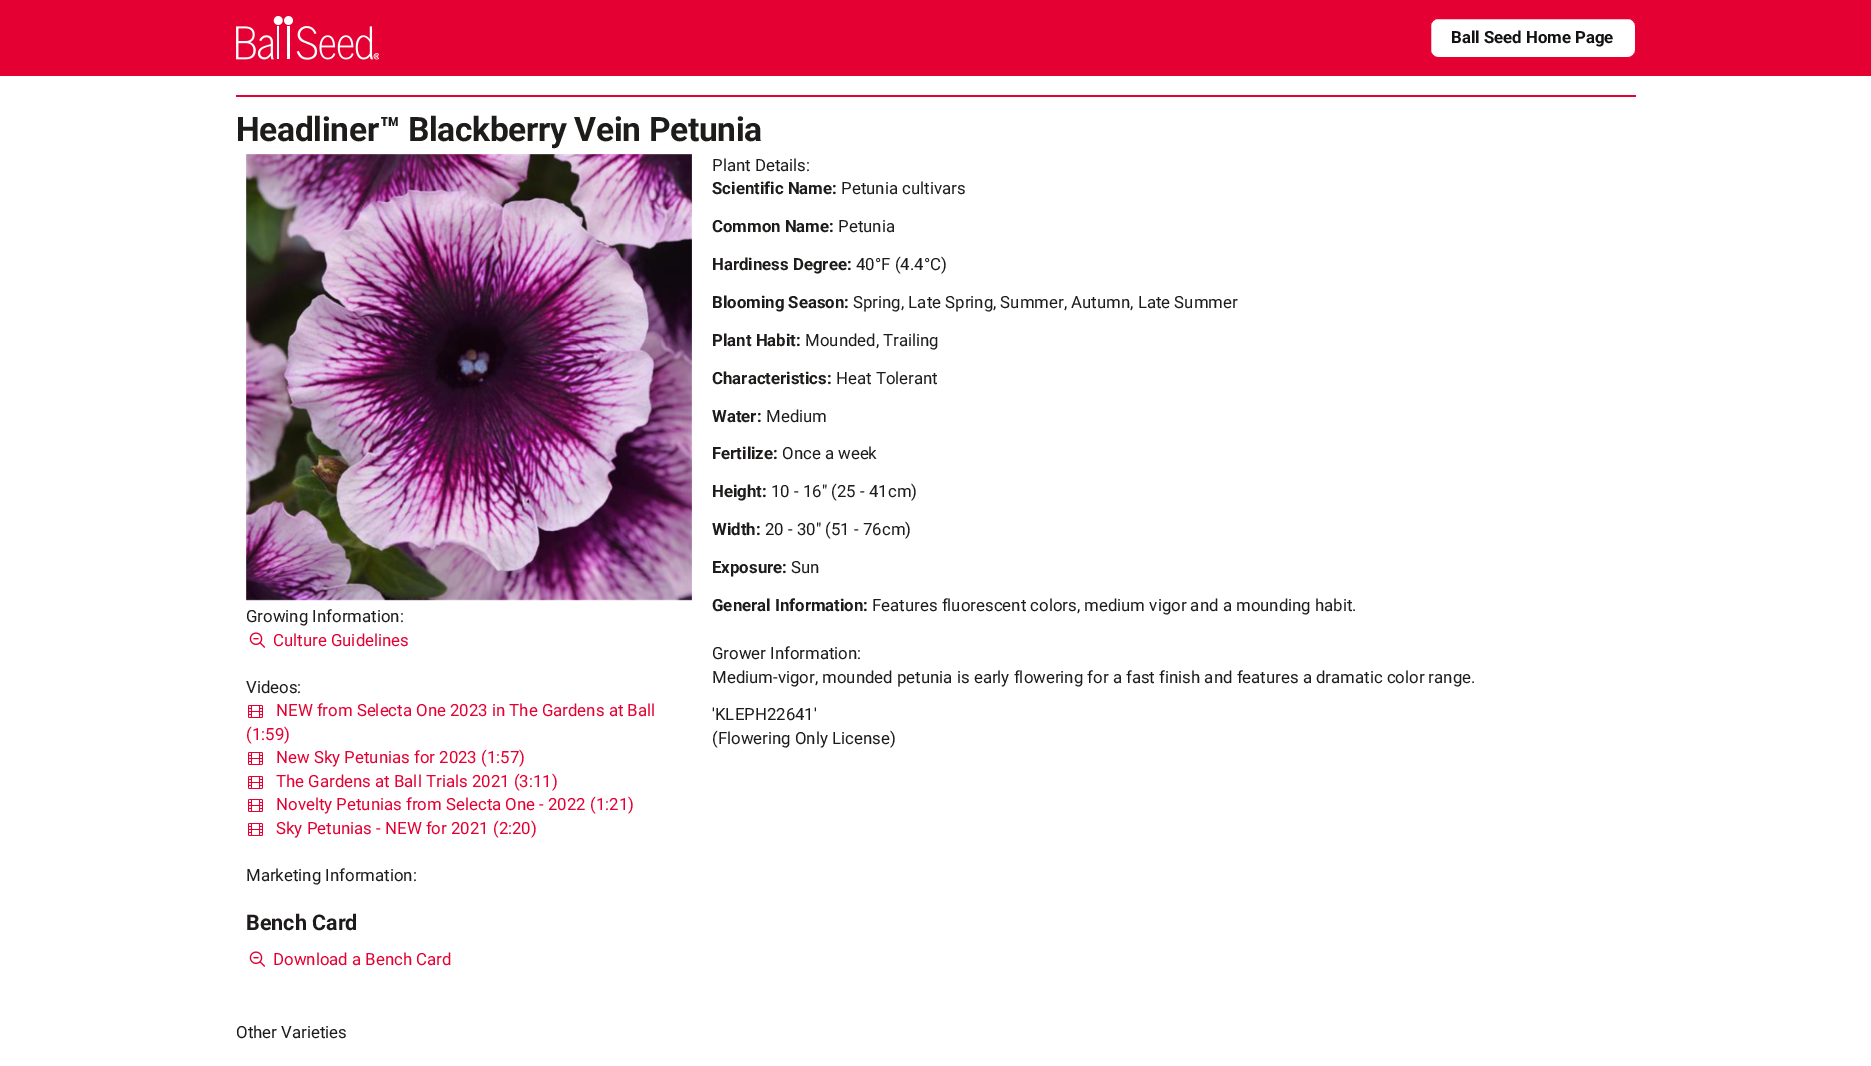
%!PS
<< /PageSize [1871 1066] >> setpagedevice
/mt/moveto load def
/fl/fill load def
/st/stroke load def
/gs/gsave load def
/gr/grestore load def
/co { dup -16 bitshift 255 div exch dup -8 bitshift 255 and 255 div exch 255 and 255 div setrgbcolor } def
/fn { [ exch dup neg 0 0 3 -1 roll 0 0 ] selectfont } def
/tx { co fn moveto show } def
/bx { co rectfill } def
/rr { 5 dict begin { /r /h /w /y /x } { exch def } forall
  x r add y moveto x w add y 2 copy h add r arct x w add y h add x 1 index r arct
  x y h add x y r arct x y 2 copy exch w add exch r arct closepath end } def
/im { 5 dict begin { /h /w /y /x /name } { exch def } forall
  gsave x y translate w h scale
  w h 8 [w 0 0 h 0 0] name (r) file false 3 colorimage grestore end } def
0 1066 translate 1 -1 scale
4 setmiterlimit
0 0 1871 1066 16#FFFFFF bx
0 0 1871 76 16#E40032 bx
(media/1.raw) 236 16 143 44 im
16#FFFFFF co
1430.5 18.5 205 39 7.5 rr gs fl gr
16#E40032 co
st
236 95 1400 2 16#E40032 bx
(media/2.raw) 246 154 446 447 im
(media/3.raw) 249 632 16 16 im
(media/4.raw) 248 705 15 13 im
(media/4.raw) 248 752 15 13 im
(media/4.raw) 248 776 15 13 im
(media/4.raw) 248 799 15 13 im
(media/4.raw) 248 823 15 13 im
(media/3.raw) 249 951 16 16 im
(Ball Seed Home Page) 1451 43 /Roboto-Bold 16.8 16#121212 tx
/Roboto-Bold 33.6 fn
16#1D1C1A co
236 141 mt -.35 0 (Headliner™ Blackberry Vein Petunia) ashow
(Plant Details:) 712 171 /Roboto-Regular 16.8 16#1D1C1A tx
(Scientific Name:) 712 194 /Roboto-Bold 16.8 16#1D1C1A tx
(Petunia cultivars) 841 194 /Roboto-Regular 16.8 16#1D1C1A tx
(Common Name:) 712 232 /Roboto-Bold 16.8 16#1D1C1A tx
(Petunia) 838 232 /Roboto-Regular 16.8 16#1D1C1A tx
(Hardiness Degree:) 712 270 /Roboto-Bold 16.8 16#1D1C1A tx
(40°F \(4.4°C\)) 856 270 /Roboto-Regular 16.8 16#1D1C1A tx
(Blooming Season:) 712 308 /Roboto-Bold 16.8 16#1D1C1A tx
(Spring, Late Spring, Summer, Autumn, Late Summer) 853 308 /Roboto-Regular 16.8 16#1D1C1A tx
(Plant Habit:) 712 346 /Roboto-Bold 16.8 16#1D1C1A tx
(Mounded, Trailing) 805 346 /Roboto-Regular 16.8 16#1D1C1A tx
(Characteristics:) 712 384 /Roboto-Bold 16.8 16#1D1C1A tx
(Heat Tolerant) 836 384 /Roboto-Regular 16.8 16#1D1C1A tx
(Water:) 712 422 /Roboto-Bold 16.8 16#1D1C1A tx
(Medium) 766 422 /Roboto-Regular 16.8 16#1D1C1A tx
(Fertilize:) 712 459 /Roboto-Bold 16.8 16#1D1C1A tx
(Once a week) 782 459 /Roboto-Regular 16.8 16#1D1C1A tx
(Height:) 712 497 /Roboto-Bold 16.8 16#1D1C1A tx
(10 - 16" \(25 - 41cm\)) 771 497 /Roboto-Regular 16.8 16#1D1C1A tx
(Width:) 712 535 /Roboto-Bold 16.8 16#1D1C1A tx
(20 - 30" \(51 - 76cm\)) 765 535 /Roboto-Regular 16.8 16#1D1C1A tx
(Exposure:) 712 573 /Roboto-Bold 16.8 16#1D1C1A tx
(Sun) 791 573 /Roboto-Regular 16.8 16#1D1C1A tx
(General Information:) 712 611 /Roboto-Bold 16.8 16#1D1C1A tx
(Features fluorescent colors, medium vigor and a mounding habit.) 872 611 /Roboto-Regular 16.8 16#1D1C1A tx
(Grower Information:) 712 659 /Roboto-Regular 16.8 16#1D1C1A tx
(Medium-vigor, mounded petunia is early flowering for a fast finish and features a dramatic color range.) 712 683 /Roboto-Regular 16.8 16#1D1C1A tx
('KLEPH22641') 712 720 /Roboto-Regular 16.8 16#1D1C1A tx
(\(Flowering Only License\)) 712 744 /Roboto-Regular 16.8 16#1D1C1A tx
(Growing Information:) 246 622 /Roboto-Regular 16.8 16#1D1C1A tx
(Culture Guidelines) 273 646 /Roboto-Regular 16.8 16#E40032 tx
(Videos:) 246 693 /Roboto-Regular 16.8 16#1D1C1A tx
(NEW from Selecta One 2023 in The Gardens at Ball) 276 716 /Roboto-Regular 16.8 16#E40032 tx
(\(1:59\)) 246 740 /Roboto-Regular 16.8 16#E40032 tx
(New Sky Petunias for 2023 \(1:57\)) 276 763 /Roboto-Regular 16.8 16#E40032 tx
(The Gardens at Ball Trials 2021 \(3:11\)) 276 787 /Roboto-Regular 16.8 16#E40032 tx
(Novelty Petunias from Selecta One - 2022 \(1:21\)) 276 810 /Roboto-Regular 16.8 16#E40032 tx
(Sky Petunias - NEW for 2021 \(2:20\)) 276 834 /Roboto-Regular 16.8 16#E40032 tx
(Marketing Information:) 246 881 /Roboto-Regular 16.8 16#1D1C1A tx
(Bench Card) 246 930 /Roboto-Bold 21.5 16#1D1C1A tx
(Download a Bench Card) 273 965 /Roboto-Regular 16.8 16#E40032 tx
(Other Varieties) 236 1038 /Roboto-Regular 16.8 16#1D1C1A tx
showpage
